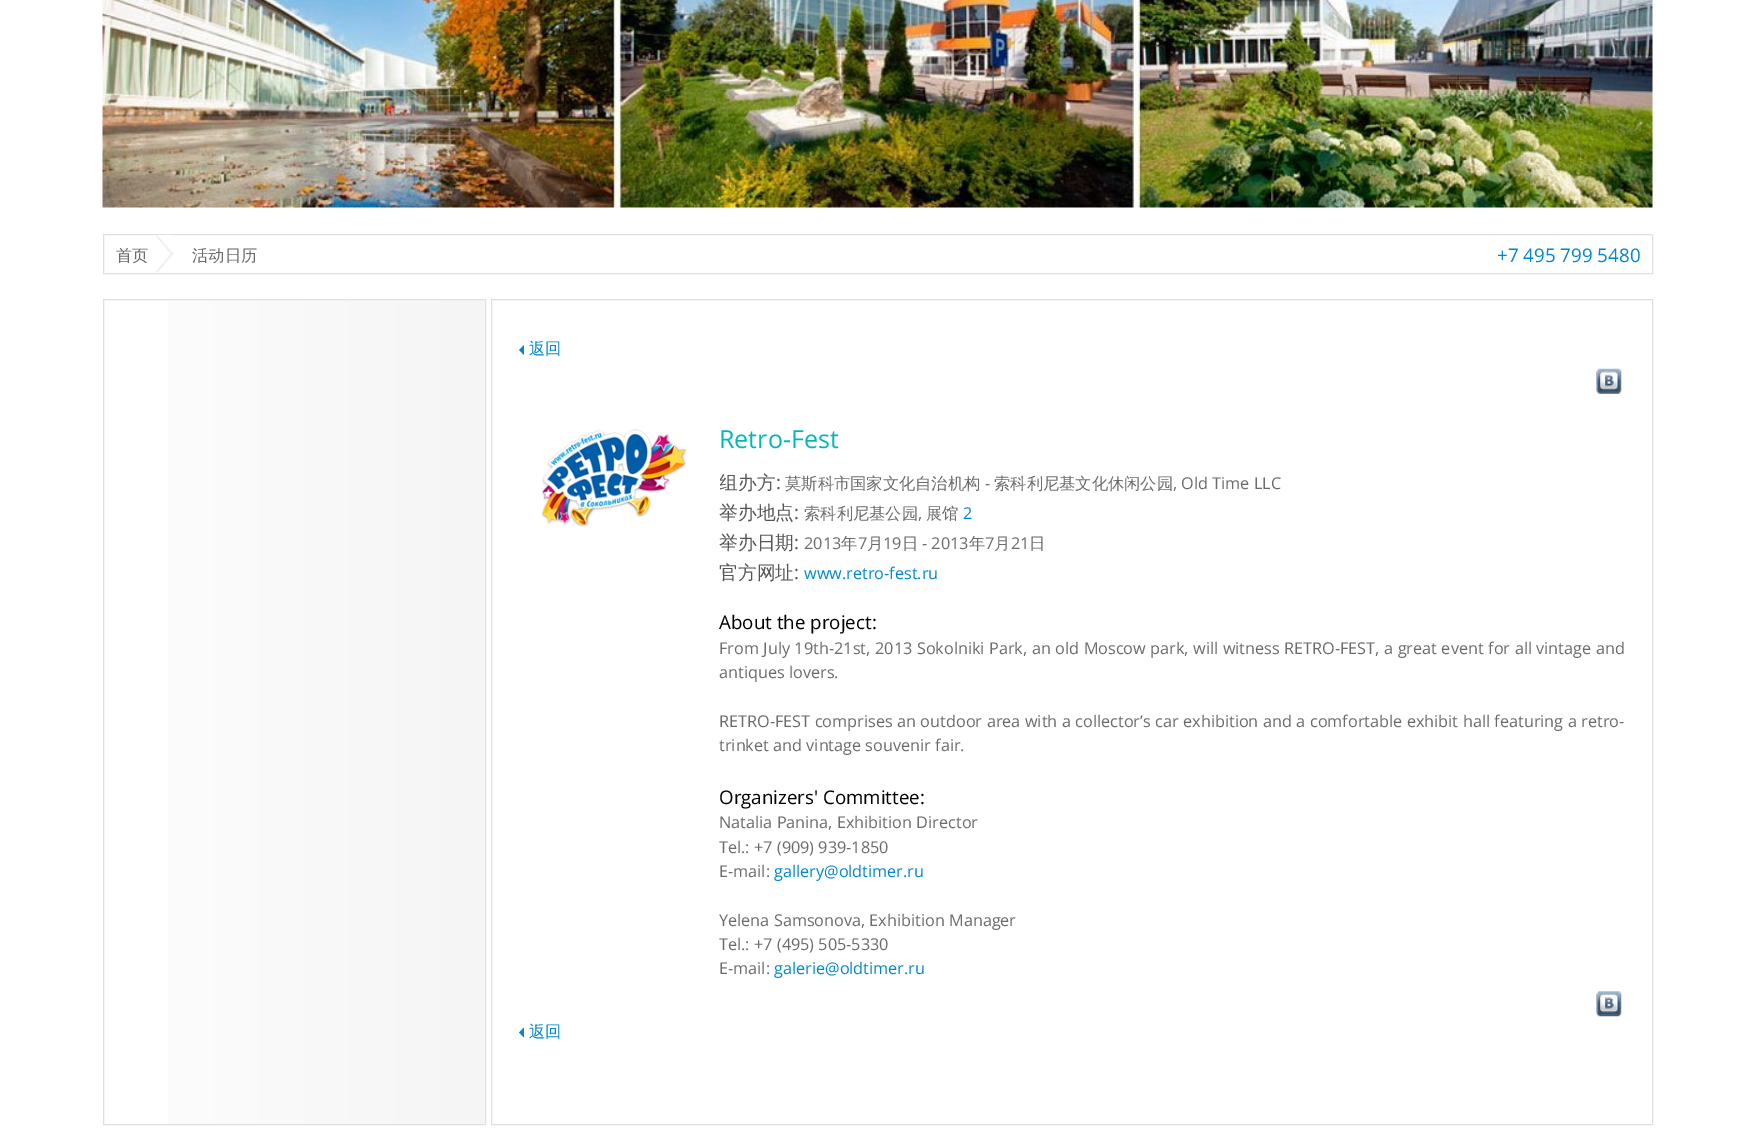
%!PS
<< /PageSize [1753 1130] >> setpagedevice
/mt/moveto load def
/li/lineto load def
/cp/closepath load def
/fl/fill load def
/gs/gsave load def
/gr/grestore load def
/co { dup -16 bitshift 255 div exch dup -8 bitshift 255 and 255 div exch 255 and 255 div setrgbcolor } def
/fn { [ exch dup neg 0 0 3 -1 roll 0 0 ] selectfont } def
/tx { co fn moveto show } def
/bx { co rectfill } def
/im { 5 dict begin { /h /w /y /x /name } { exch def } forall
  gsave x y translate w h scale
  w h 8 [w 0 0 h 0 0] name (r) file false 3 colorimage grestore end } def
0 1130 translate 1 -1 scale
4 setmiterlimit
0 0 1753 1130 16#FFFFFF bx
(media/1.raw) 102 0 1551 208 im
16#DFDFDF co
103.5 234.5 1549 39 rectstroke
(media/2.raw) 155 235 19 38 im
gs 168 300 mt 485 300 li 485 1124 li 168 1124 li cp clip newpath
<< /ShadingType 2 /ColorSpace /DeviceRGB /Coords [104 712 485 712] /Extend [true true] /Function << /FunctionType 2 /Domain [0 1] /C0 [1 .996 1] /C1 [.965 .961 .961] /N 1 >> >> shfill gr
103.5 299.5 382 825 rectstroke
491.5 299.5 1161 825 rectstroke
16#0088CC co
524 345 mt 524 355 li 519 350 li cp fl
(media/3.raw) 1596 368 26 26 im
(media/4.raw) 541 429 146 98 im
(media/5.raw) 1596 991 26 26 im
524 1027.5 mt 524 1037.5 li 519 1032.5 li cp fl
(首页) 116 261 /WenQuanYiZenHei-Medium 16.25 16#6B6B6B tx
(活动日历) 192 261 /WenQuanYiZenHei-Medium 16.25 16#6B6B6B tx
(+7 495 799 5480) 1497 262 /OpenSans-Regular 18.75 16#0088CC tx
(返回) 529 354 /WenQuanYiZenHei-Medium 16.25 16#0088CC tx
(Retro-Fest) 719 448 /OpenSans-Regular 25 16#00B8B7 tx
gs
720 468 906 120 rectclip
(组办方) 719 489 /WenQuanYiZenHei-Medium 18.75 16#555555 tx
gr
(:) 776 489 /OpenSans-Regular 18.75 16#555555 tx
(莫斯科市国家文化自治机构) 785 489 /WenQuanYiZenHei-Medium 16.25 16#6B6B6B tx
(-) 985 489 /OpenSans-Regular 16.25 16#6B6B6B tx
(索科利尼基文化休闲公园) 994 489 /WenQuanYiZenHei-Medium 16.25 16#6B6B6B tx
(, Old Time LLC) 1173 489 /OpenSans-Regular 16.25 16#6B6B6B tx
(举办地点) 719 519 /WenQuanYiZenHei-Medium 18.75 16#555555 tx
(:) 794 519 /OpenSans-Regular 18.75 16#555555 tx
(索科利尼基公园) 804 519 /WenQuanYiZenHei-Medium 16.25 16#6B6B6B tx
(,) 918 519 /OpenSans-Regular 16.25 16#6B6B6B tx
(展馆) 926 519 /WenQuanYiZenHei-Medium 16.25 16#6B6B6B tx
(2) 963 519 /OpenSans-Regular 16.25 16#0088CC tx
(举办日期) 719 549 /WenQuanYiZenHei-Medium 18.75 16#555555 tx
(:) 794 549 /OpenSans-Regular 18.75 16#555555 tx
(2013) 804 549 /OpenSans-Regular 16.25 16#6B6B6B tx
(年) 841 549 /WenQuanYiZenHei-Medium 16.25 16#6B6B6B tx
(7) 858 549 /OpenSans-Regular 16.25 16#6B6B6B tx
(月) 867 549 /WenQuanYiZenHei-Medium 16.25 16#6B6B6B tx
(19) 883 549 /OpenSans-Regular 16.25 16#6B6B6B tx
(日) 902 549 /WenQuanYiZenHei-Medium 16.25 16#6B6B6B tx
(- 2013) 922 549 /OpenSans-Regular 16.25 16#6B6B6B tx
(年) 969 549 /WenQuanYiZenHei-Medium 16.25 16#6B6B6B tx
(7) 985 549 /OpenSans-Regular 16.25 16#6B6B6B tx
(月) 994 549 /WenQuanYiZenHei-Medium 16.25 16#6B6B6B tx
(21) 1011 549 /OpenSans-Regular 16.25 16#6B6B6B tx
(日) 1029 549 /WenQuanYiZenHei-Medium 16.25 16#6B6B6B tx
(官方网址) 719 579 /WenQuanYiZenHei-Medium 18.75 16#555555 tx
(:) 794 579 /OpenSans-Regular 18.75 16#555555 tx
(www.retro-fest.ru) 804 579 /OpenSans-Regular 16.25 16#0088CC tx
(About the project:) 719 629 /OpenSans-Regular 18.75 16#000000 tx
/OpenSans-Regular 16.25 fn
16#6B6B6B co
719 654 mt .3 0 32 (From July 19th-21st,) widthshow
875 654 mt .3 0 32 (2013 Sokolniki Park, an old Moscow park, will witness RETRO-FEST, a great event for all vintage and) widthshow
(antiques lovers.) 719 678 /OpenSans-Regular 16.25 16#6B6B6B tx
719 727 mt .25 0 32 (RETRO-FEST comprises an outdoor area with a collector’s car exhibition and a comfortable exhibit hall featuring a retro-) widthshow
(trinket and vintage souvenir fair.) 719 751 /OpenSans-Regular 16.25 16#6B6B6B tx
(Organizers' Committee:) 719 804 /OpenSans-Regular 18.75 16#000000 tx
(Natalia Panina, Exhibition Director) 719 828 /OpenSans-Regular 16.25 16#6B6B6B tx
(Tel.: +7 \(909\) 939-1850) 719 853 /OpenSans-Regular 16.25 16#6B6B6B tx
(E-mail:) 719 877 /OpenSans-Regular 16.25 16#6B6B6B tx
(gallery@oldtimer.ru) 774 877 /OpenSans-Regular 16.25 16#0088CC tx
(Yelena Samsonova, Exhibition Manager) 719 926 /OpenSans-Regular 16.25 16#6B6B6B tx
(Tel.: +7 \(495\) 505-5330) 719 950 /OpenSans-Regular 16.25 16#6B6B6B tx
(E-mail:) 719 974 /OpenSans-Regular 16.25 16#6B6B6B tx
(galerie@oldtimer.ru) 774 974 /OpenSans-Regular 16.25 16#0088CC tx
(返回) 529 1037 /WenQuanYiZenHei-Medium 16.25 16#0088CC tx
showpage
